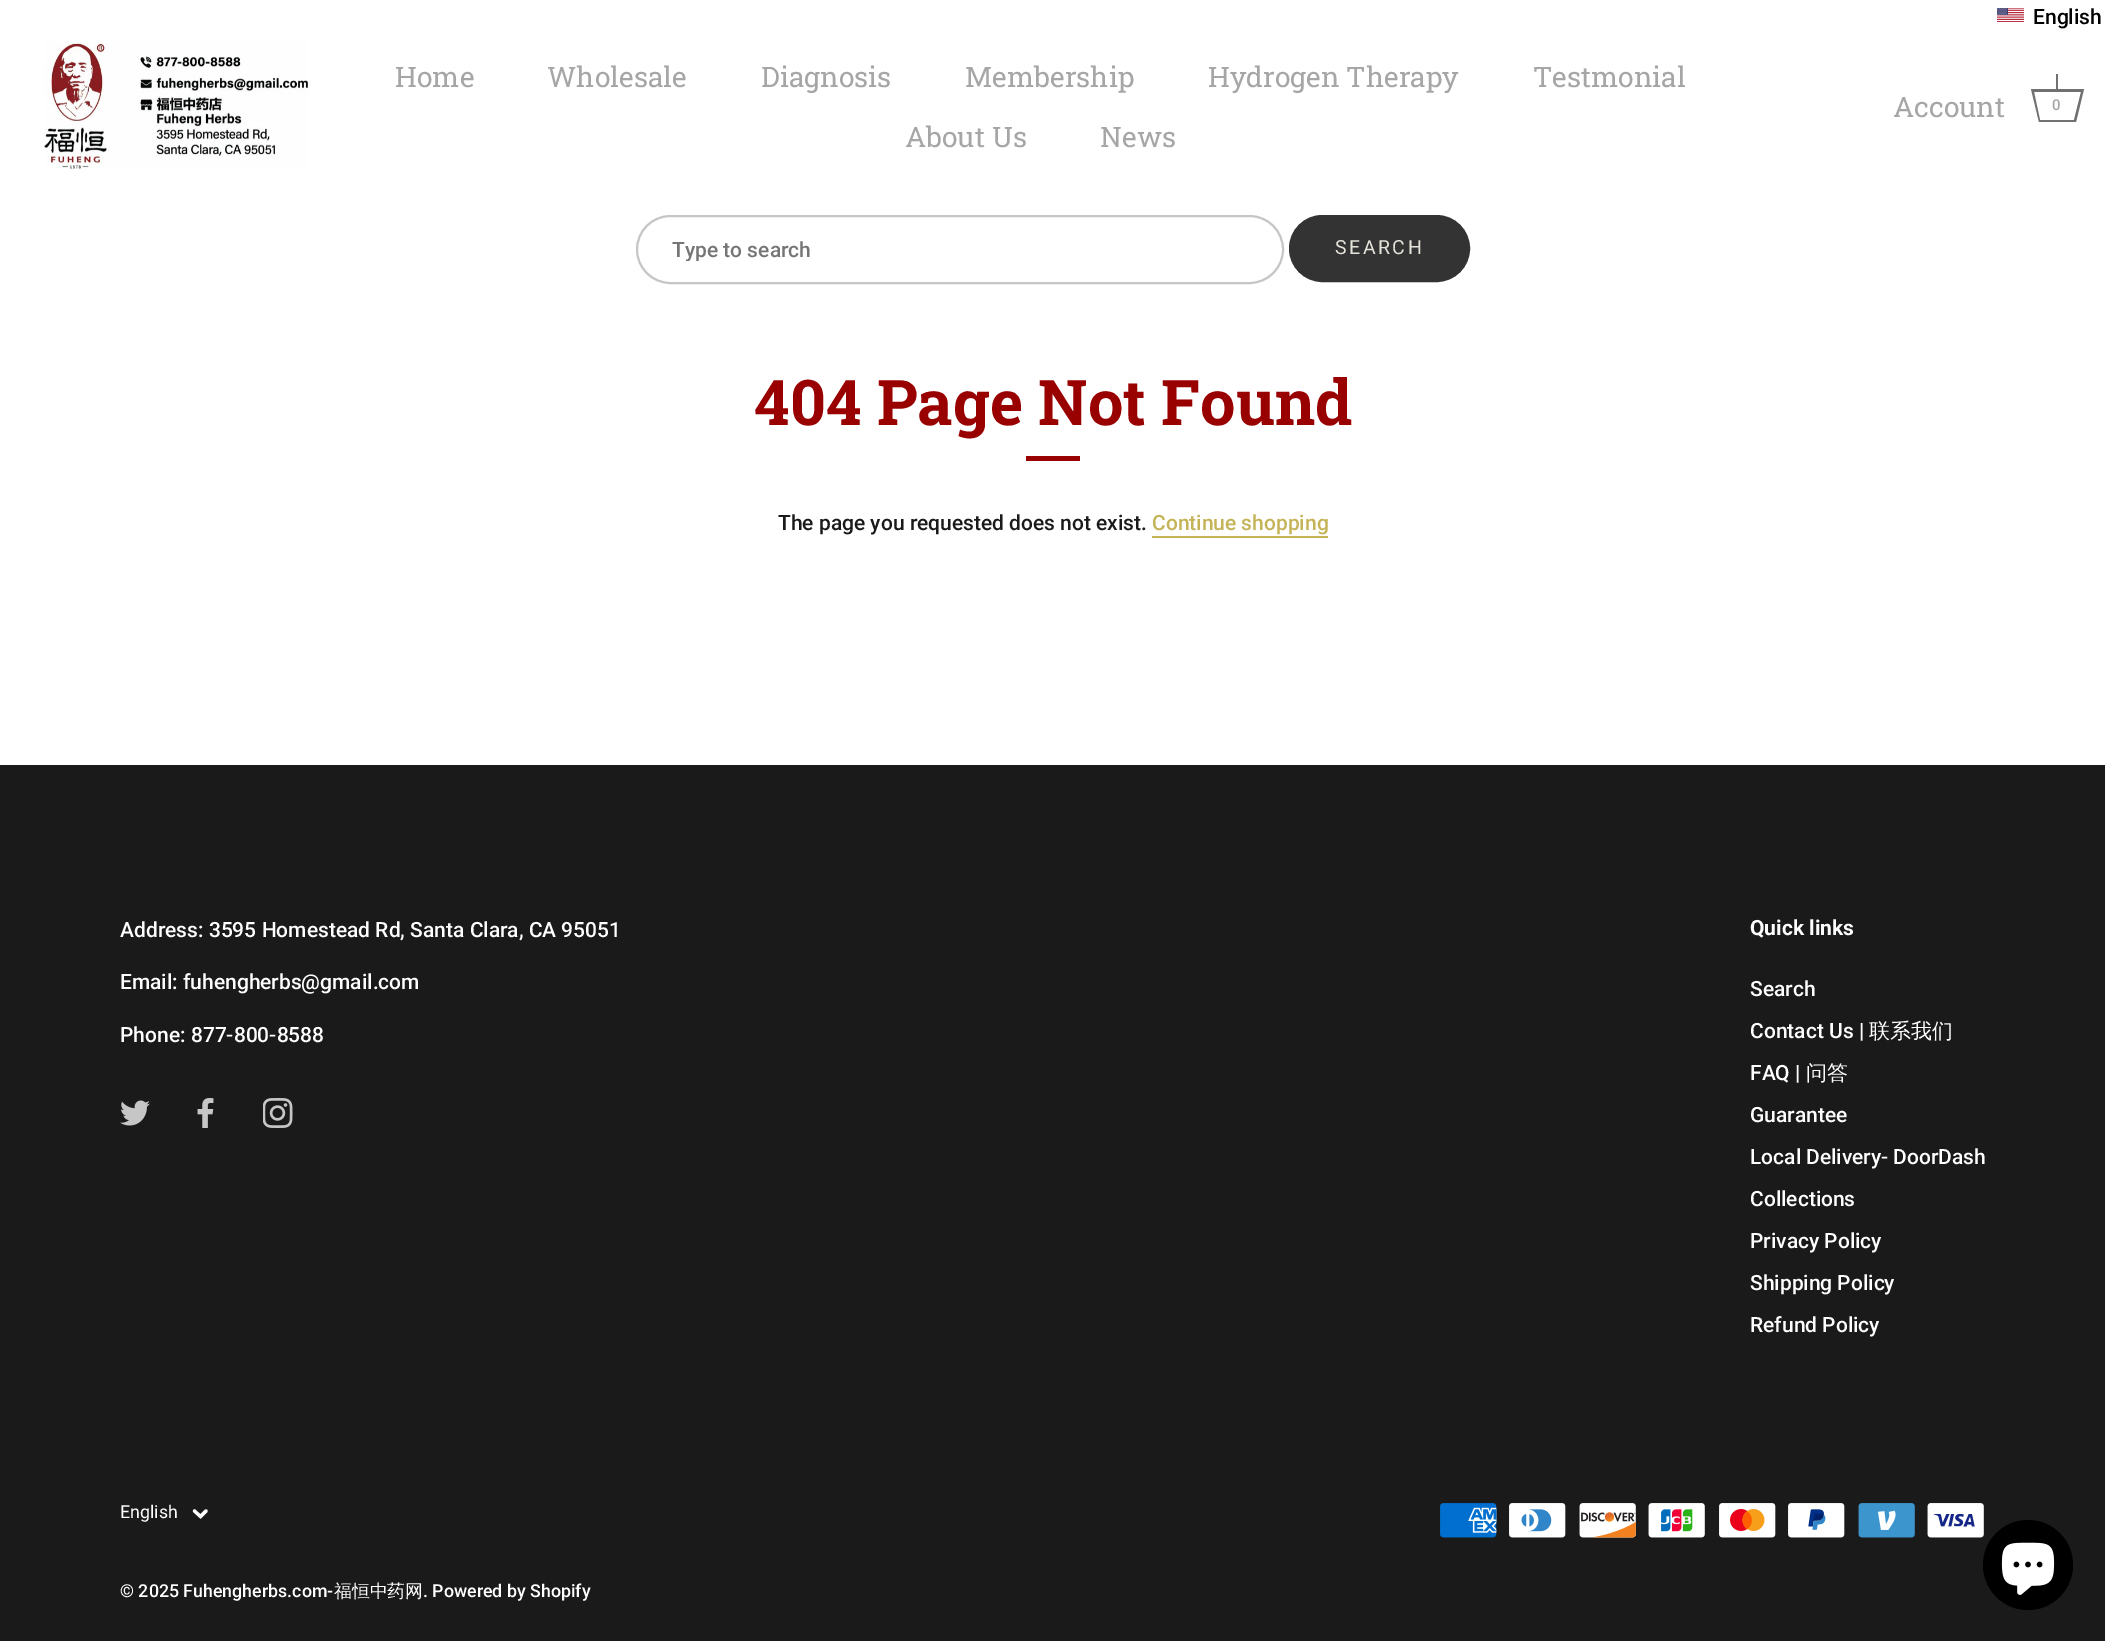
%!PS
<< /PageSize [2105 1641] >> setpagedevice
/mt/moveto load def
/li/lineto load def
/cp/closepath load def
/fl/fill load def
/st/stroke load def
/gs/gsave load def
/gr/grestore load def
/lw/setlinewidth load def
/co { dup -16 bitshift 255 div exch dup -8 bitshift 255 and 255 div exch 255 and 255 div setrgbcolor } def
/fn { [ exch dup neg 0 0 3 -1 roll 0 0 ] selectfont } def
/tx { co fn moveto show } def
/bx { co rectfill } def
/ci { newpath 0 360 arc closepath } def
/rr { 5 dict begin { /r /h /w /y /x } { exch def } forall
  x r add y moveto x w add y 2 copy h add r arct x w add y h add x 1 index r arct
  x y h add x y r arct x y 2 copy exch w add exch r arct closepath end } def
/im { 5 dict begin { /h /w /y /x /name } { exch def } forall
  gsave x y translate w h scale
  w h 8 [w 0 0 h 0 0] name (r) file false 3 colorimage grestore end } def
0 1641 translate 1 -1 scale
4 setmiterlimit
0 0 2105 1641 16#FFFFFF bx
(media/1.raw) 1997 8 27 14 im
(media/2.raw) 44 42 264 128 im
2056 74 2 15 16#717171 bx
2081 92 mt 2074 120 li 2040 120 li 2034 92 li 2081 92 li 2084 89 mt 2031 89 li 2039 122 li 2076 122 li cp fl
16#C6C6C6 co
2 lw
637 216 646 67 33.5 rr st
16#333333 co
1290 216 179 65 32.5 rr gs fl gr
st
1026 456 54 5 16#990000 bx
1152 536 176 2 16#C5B358 bx
0 765 2105 876 16#1A1A1A bx
(media/3.raw) 120 1100 30 26 im
(media/4.raw) 197 1098 17 30 im
(media/5.raw) 263 1098 30 30 im
16#FFFFFF co
3.2 lw
1 setlinecap
194.5 1511 mt 200.5 1516.5 li 206 1511 li st
(media/6.raw) 1440 1503 57 35 im
(media/7.raw) 1509 1503 57 35 im
(media/8.raw) 1579 1503 57 35 im
(media/9.raw) 1648 1503 57 35 im
(media/10.raw) 1719 1503 57 35 im
(media/11.raw) 1788 1503 57 35 im
(media/12.raw) 1858 1503 57 35 im
(media/13.raw) 1927 1503 57 35 im
16#000000 co
2028 1565 45 ci fl
(media/14.raw) 2001 1542 54 53 im
(English) 2033 24 /Roboto-Medium 21 16#000000 tx
(Home) 395 87 /RobotoSlab-Regular 28.25 16#A6A6A6 tx
(Wholesale) 547 87 /RobotoSlab-Regular 28.25 16#A6A6A6 tx
(Diagnosis) 761 87 /RobotoSlab-Regular 28.25 16#A6A6A6 tx
(Membership) 965 87 /RobotoSlab-Regular 28.25 16#A6A6A6 tx
(Hydrogen Therapy) 1208 87 /RobotoSlab-Regular 28.25 16#A6A6A6 tx
(Testmonial) 1533 87 /RobotoSlab-Regular 28.25 16#A6A6A6 tx
(About Us) 905 147 /RobotoSlab-Regular 28.25 16#A6A6A6 tx
(News) 1100 147 /RobotoSlab-Regular 28.25 16#A6A6A6 tx
(Account) 1893 117 /RobotoSlab-Regular 28.25 16#A6A6A6 tx
(0) 2052 110 /Roboto-Medium 15 16#A6A6A6 tx
gs
672 237 575 24 rectclip
(Type to search) 672 257 /Roboto-Medium 21 16#757575 tx
gr
/Roboto-Regular 19.5 fn
16#E5E3DA co
1335 254 mt 2.5 0 (SEARCH) ashow
(404 Page Not Found) 754 425 /RobotoSlab-Bold 63 16#990000 tx
(The page you requested does not exist.) 778 530 /Roboto-Medium 21 16#1A1A1A tx
(Continue shopping) 1152 530 /Roboto-Medium 21 16#C5B358 tx
(Address: 3595 Homestead Rd, Santa Clara, CA 95051) 120 937 /Roboto-Medium 21 16#FFFFFF tx
(Email: fuhengherbs@gmail.com) 120 989 /Roboto-Medium 21 16#FFFFFF tx
(Phone: 877-800-8588) 120 1042 /Roboto-Medium 21 16#FFFFFF tx
(Quick links) 1750 935 /Roboto-Bold 21 16#FFFFFF tx
(Search) 1750 996 /Roboto-Medium 21 16#FFFFFF tx
(Contact Us |) 1750 1038 /Roboto-Medium 21 16#FFFFFF tx
(联系我们) 1869 1038 /WenQuanYiZenHei-Medium 21 16#FFFFFF tx
(FAQ |) 1750 1080 /Roboto-Medium 21 16#FFFFFF tx
(问答) 1806 1080 /WenQuanYiZenHei-Medium 21 16#FFFFFF tx
(Guarantee) 1750 1122 /Roboto-Medium 21 16#FFFFFF tx
(Local Delivery- DoorDash) 1750 1164 /Roboto-Medium 21 16#FFFFFF tx
(Collections) 1750 1206 /Roboto-Medium 21 16#FFFFFF tx
(Privacy Policy) 1750 1248 /Roboto-Medium 21 16#FFFFFF tx
(Shipping Policy) 1750 1290 /Roboto-Medium 21 16#FFFFFF tx
(Refund Policy) 1750 1332 /Roboto-Medium 21 16#FFFFFF tx
(English) 120 1518 /Roboto-Regular 17.8 16#FFFFFF tx
(© 2025 Fuhengherbs.com-) 120 1597 /Roboto-Medium 17.8 16#FFFFFF tx
(福恒中药网) 334 1597 /WenQuanYiZenHei-Medium 17.8 16#FFFFFF tx
(. Powered by Shopify) 423 1597 /Roboto-Medium 17.8 16#FFFFFF tx
showpage
